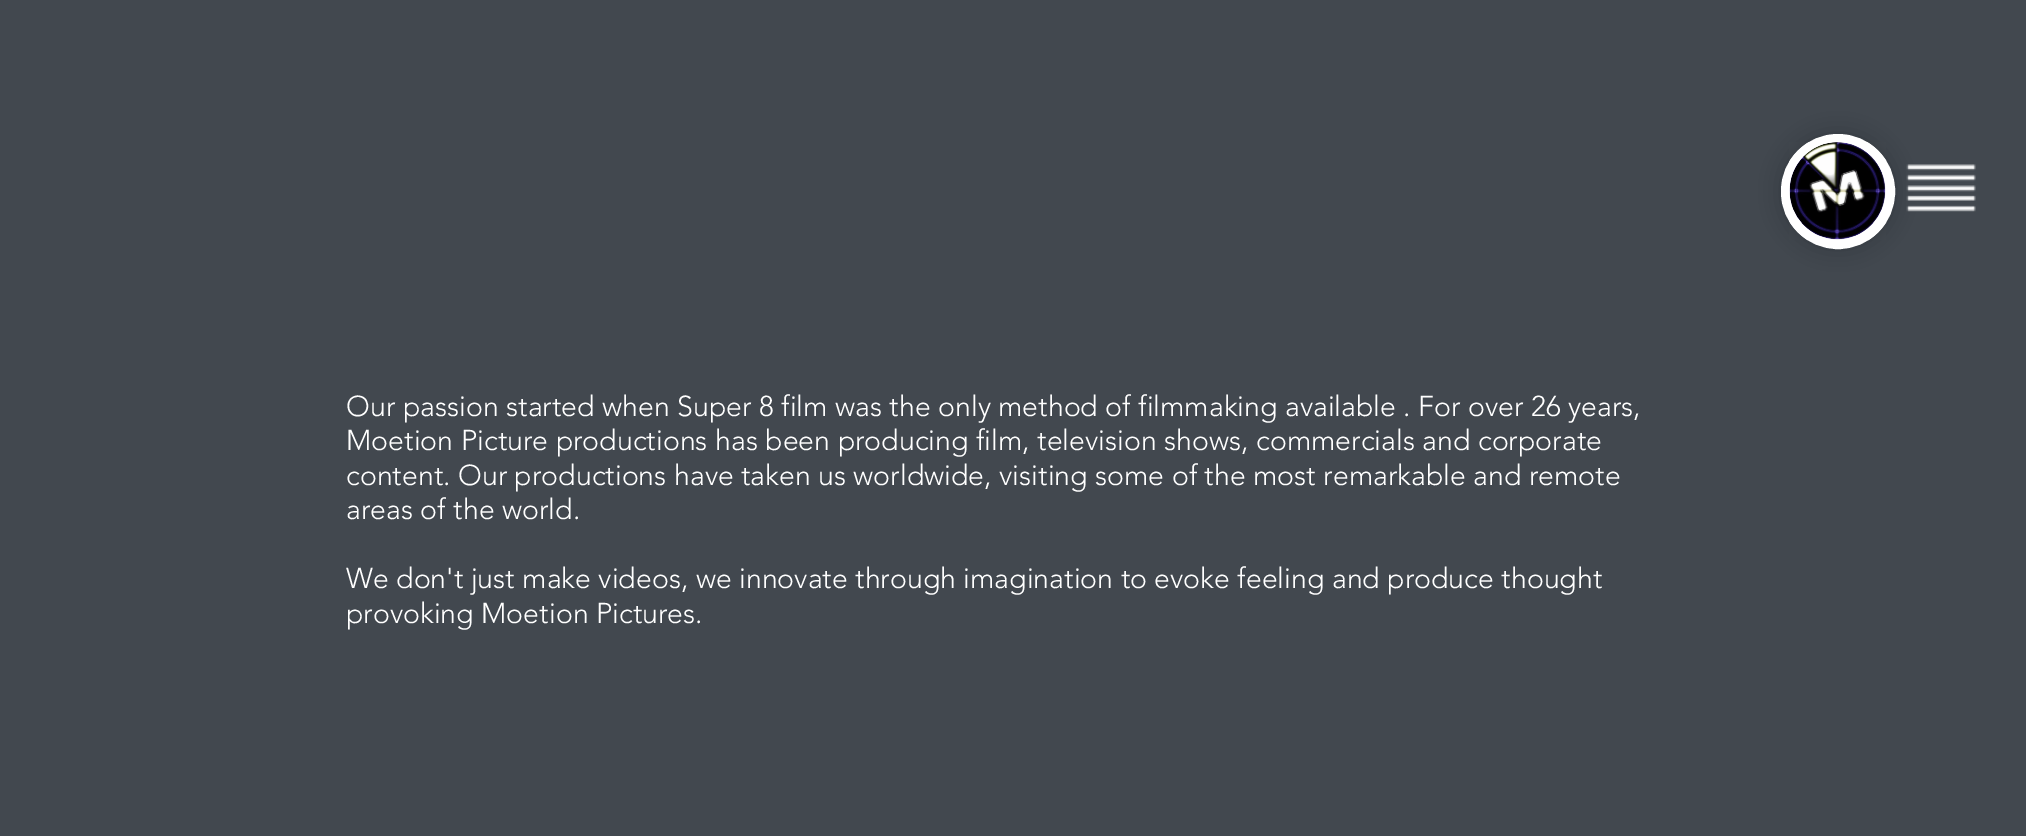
%!PS
<< /PageSize [2026 836] /PageUsesTransparency true >> setpagedevice
/fl/fill load def
/st/stroke load def
/gs/gsave load def
/gr/grestore load def
/lw/setlinewidth load def
/co { dup -16 bitshift 255 div exch dup -8 bitshift 255 and 255 div exch 255 and 255 div setrgbcolor } def
/fn { [ exch dup neg 0 0 3 -1 roll 0 0 ] selectfont } def
/tx { co fn moveto show } def
/bx { co rectfill } def
/al { dup .setfillconstantalpha .setstrokeconstantalpha } def
/rr { 5 dict begin { /r /h /w /y /x } { exch def } forall
  x r add y moveto x w add y 2 copy h add r arct x w add y h add x 1 index r arct
  x y h add x y r arct x y 2 copy exch w add exch r arct closepath end } def
/sh { 12 dict begin { /a /b /q /h /w /y /x } { exch def } forall gsave /was 0 def
  9 -2 -9 { dup b mul 4 div /e exch def 1 sub .425 mul 2.718 exch exp 1 add a .99 .min exch div /now exch def
    1 1 now sub 1 was sub div sub al /was now def
    w h .min e 2 mul add 0 gt { x e sub y e sub w e 2 mul add h e 2 mul add
      q e add b .6 mul add w h .min 2 div e add .min 0 .max rr fill } if } for grestore end } def
/im { 5 dict begin { /h /w /y /x /name } { exch def } forall
  gsave x y translate w h scale
  w h 8 [w 0 0 h 0 0] name (r) file false 3 colorimage grestore end } def
0 .pushpdf14devicefilter
0 836 translate 1 -1 scale
4 setmiterlimit
0 0 2026 836 16#42484F bx
16#000000 co
1781 134 114 115 57 10.5 .2 sh
16#FFFFFF co
1785.5 138.5 105 106 52.5 rr gs fl gr
9 lw
st
(media/1.raw) 1789 142 97 98 im
(media/2.raw) 1906 164 70 48 im
(Our passion started when Super 8 film was the only method of filmmaking available . For over 26 years,) 346 416 /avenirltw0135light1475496-Light 28.5 16#FFFFFF tx
(Moetion Picture productions has been producing film, television shows, commercials and corporate) 346 450 /avenirltw0135light1475496-Light 28.5 16#FFFFFF tx
(content. Our productions have taken us worldwide, visiting some of the most remarkable and remote) 346 485 /avenirltw0135light1475496-Light 28.5 16#FFFFFF tx
(areas of the world.) 346 519 /avenirltw0135light1475496-Light 28.5 16#FFFFFF tx
(We don't just make videos, we innovate through imagination to evoke feeling and produce thought) 346 588 /avenirltw0135light1475496-Light 28.5 16#FFFFFF tx
(provoking Moetion Pictures.) 346 623 /avenirltw0135light1475496-Light 28.5 16#FFFFFF tx
.poppdf14devicefilter showpage
